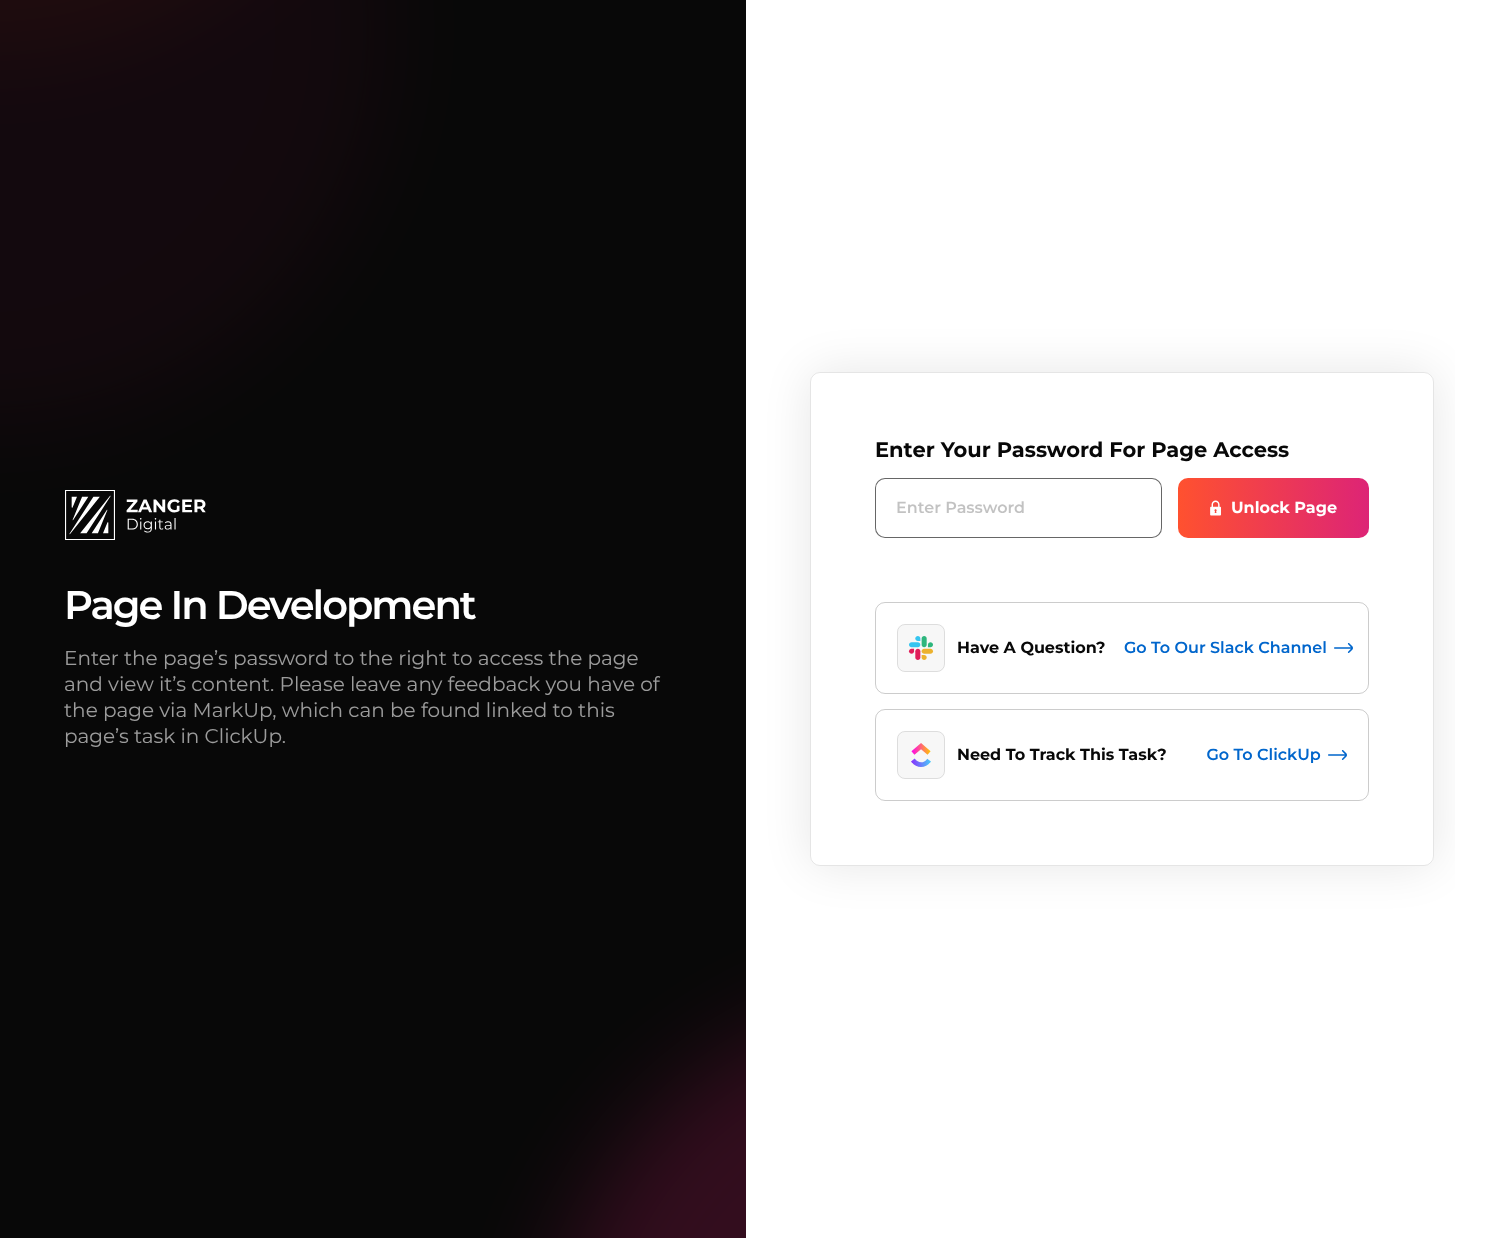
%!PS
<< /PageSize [1498 1238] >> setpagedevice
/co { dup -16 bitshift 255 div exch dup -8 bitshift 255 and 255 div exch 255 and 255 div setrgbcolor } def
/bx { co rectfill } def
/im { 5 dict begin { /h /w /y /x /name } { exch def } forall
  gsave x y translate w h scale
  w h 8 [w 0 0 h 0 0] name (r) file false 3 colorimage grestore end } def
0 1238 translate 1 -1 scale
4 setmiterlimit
0 0 1498 1238 16#FFFFFF bx
(media/1.raw) 0 0 1455 1238 im
showpage
